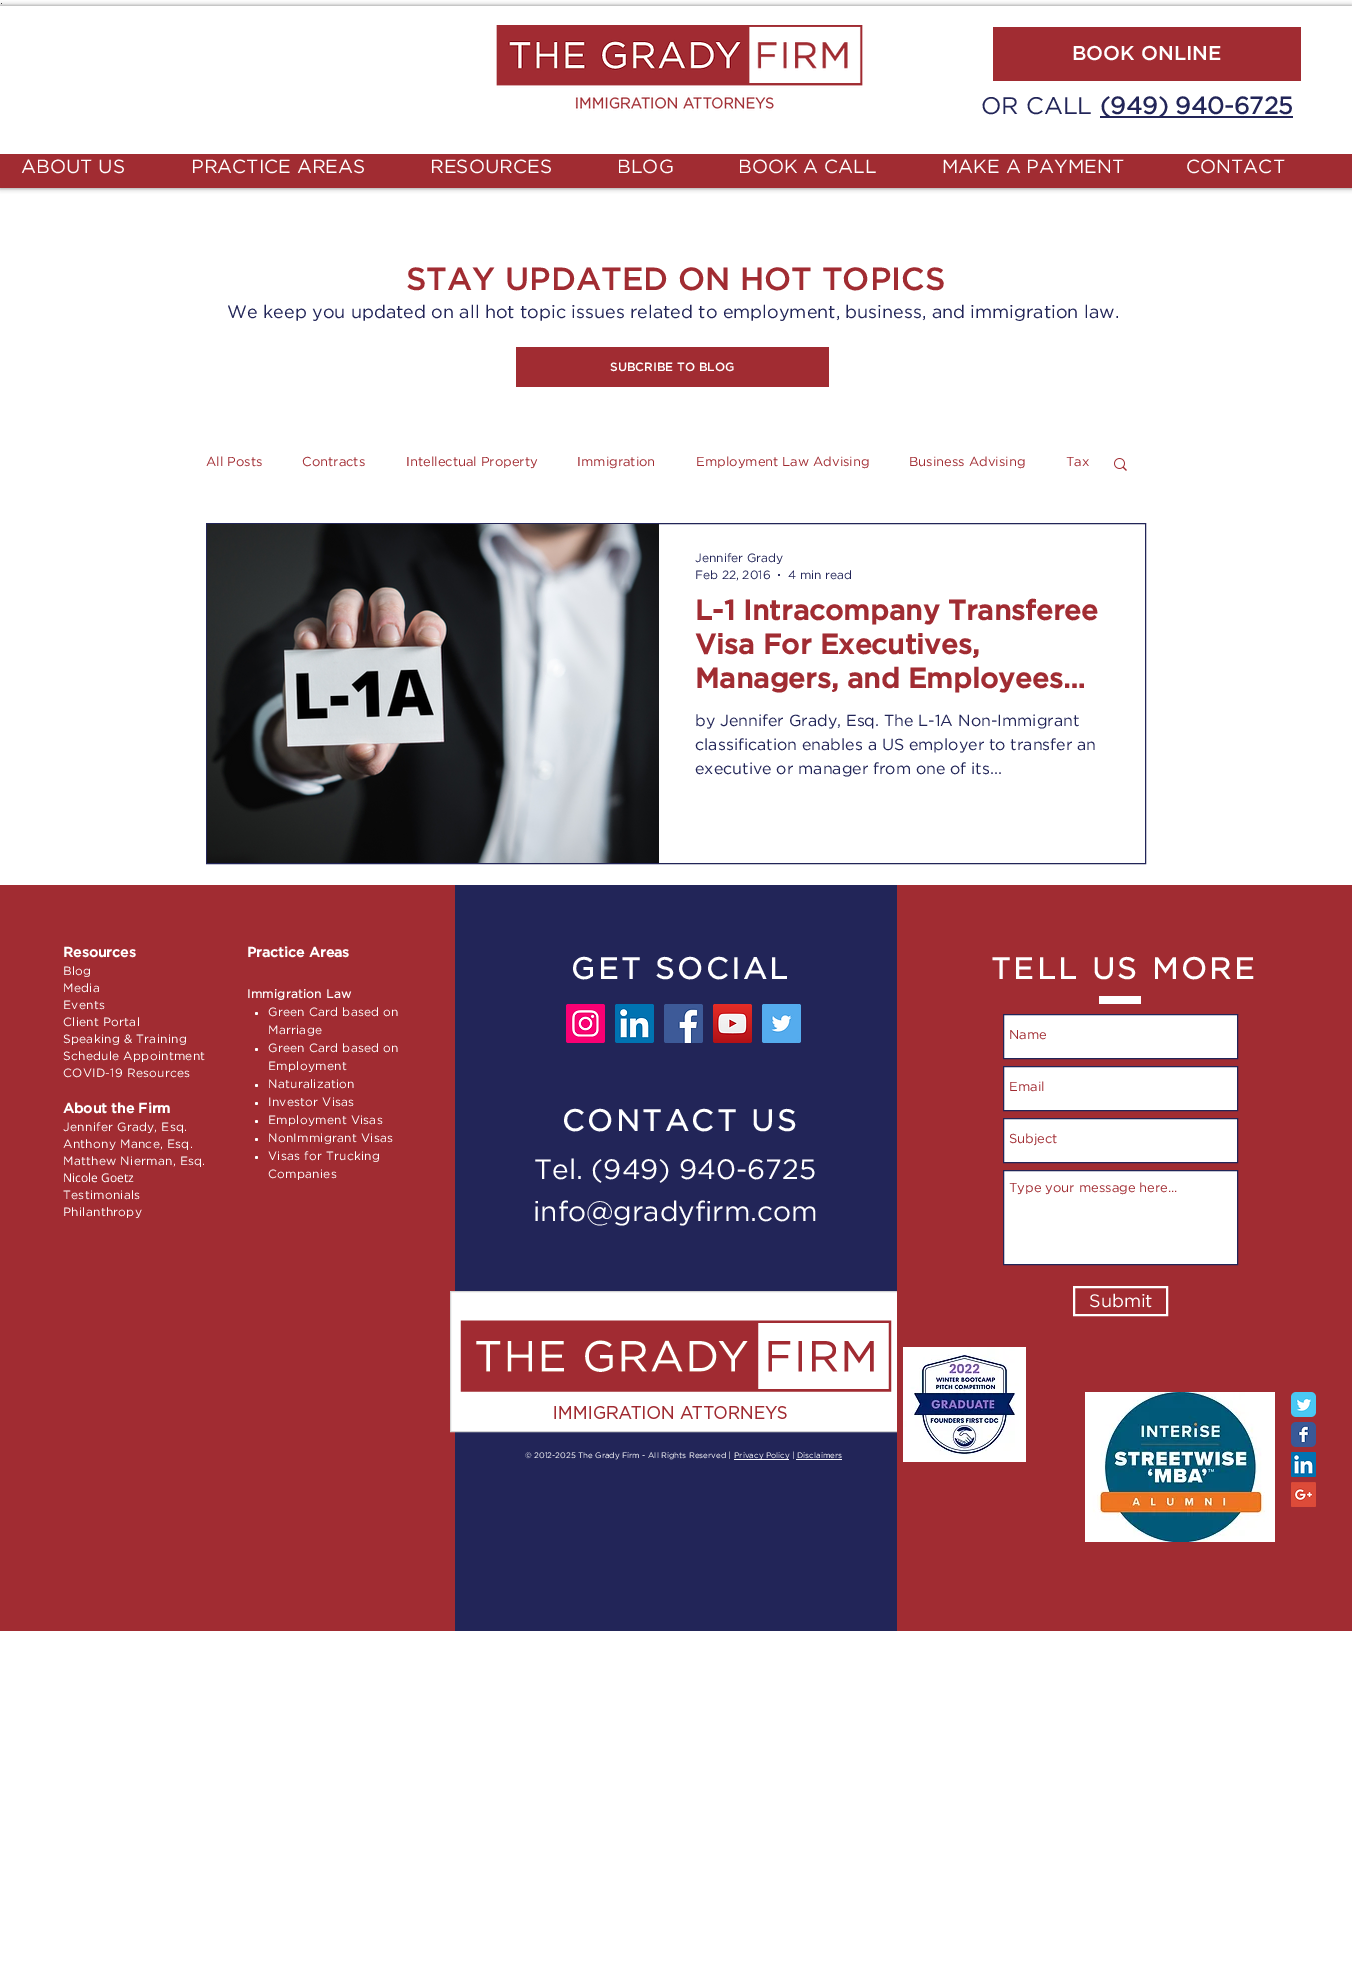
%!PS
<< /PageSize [1352 1974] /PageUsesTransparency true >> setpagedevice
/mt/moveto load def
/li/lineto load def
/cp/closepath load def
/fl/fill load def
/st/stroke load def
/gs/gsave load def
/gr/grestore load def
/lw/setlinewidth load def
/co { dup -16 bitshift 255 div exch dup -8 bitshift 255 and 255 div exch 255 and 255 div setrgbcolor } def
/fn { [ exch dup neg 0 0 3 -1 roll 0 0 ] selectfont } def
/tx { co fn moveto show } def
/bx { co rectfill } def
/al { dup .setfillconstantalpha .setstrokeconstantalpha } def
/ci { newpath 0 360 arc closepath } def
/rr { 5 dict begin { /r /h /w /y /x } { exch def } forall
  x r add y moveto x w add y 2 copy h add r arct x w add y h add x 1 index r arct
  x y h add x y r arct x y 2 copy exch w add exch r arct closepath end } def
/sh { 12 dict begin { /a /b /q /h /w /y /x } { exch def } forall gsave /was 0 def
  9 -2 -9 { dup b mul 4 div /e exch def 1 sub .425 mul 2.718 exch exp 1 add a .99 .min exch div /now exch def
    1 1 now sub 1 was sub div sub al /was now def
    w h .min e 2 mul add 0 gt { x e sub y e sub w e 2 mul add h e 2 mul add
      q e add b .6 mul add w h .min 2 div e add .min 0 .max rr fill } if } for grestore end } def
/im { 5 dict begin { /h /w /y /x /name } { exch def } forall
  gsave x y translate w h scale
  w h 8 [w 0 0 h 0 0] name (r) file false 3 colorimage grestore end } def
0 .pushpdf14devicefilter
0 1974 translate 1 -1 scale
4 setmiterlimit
0 0 1352 1974 16#FFFFFF bx
gs
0 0 mt 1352 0 li 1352 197 li 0 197 li cp 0 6 mt 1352 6 li 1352 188 li 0 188 li cp eoclip newpath
16#000000 co
0 6 1352 182 0 2.5 .5 sh
gr
(media/1.raw) 496 25 367 86 im
993 27 308 54 16#A12C32 bx
1100 116 193 2 16#222558 bx
0 154 1352 34 16#A12C32 bx
516 347 313 40 16#A12C32 bx
(media/2.raw) 1114 458 13 13 im
16#222558 co
206.5 523.5 939 340 rectstroke
(media/3.raw) 207 524 452 339 im
779 575 1 ci fl
0 885 455 746 16#A12C32 bx
16#FFFFFF co
256.5 1013.5 1.5 ci fl
256.5 1049.5 1.5 ci fl
256.5 1085.5 1.5 ci fl
256.5 1103.5 1.5 ci fl
256.5 1121.5 1.5 ci fl
256.5 1139.5 1.5 ci fl
256.5 1157.5 1.5 ci fl
455 885 442 746 16#222558 bx
(media/4.raw) 566 1004 39 39 im
(media/5.raw) 615 1004 39 39 im
(media/6.raw) 664 1004 39 39 im
(media/7.raw) 713 1004 39 39 im
(media/8.raw) 762 1004 39 39 im
451 1292 446 139 16#FFFFFF bx
16#D4D4D4 co
450.5 1291.5 451 140 rectstroke
(media/9.raw) 460 1320 432 99 im
734 1459 55 1 16#FFFFFF bx
796 1459 46 1 16#FFFFFF bx
897 885 455 746 16#A12C32 bx
1099 996 42 8 16#FFFFFF bx
1003.5 1014.5 mt 1237.5 1014.5 li 1237.5 1058.5 li 1003.5 1058.5 li cp gs fl gr
16#222558 co
st
16#FFFFFF co
1003.5 1066.5 mt 1237.5 1066.5 li 1237.5 1110.5 li 1003.5 1110.5 li cp gs fl gr
16#222558 co
st
16#FFFFFF co
1003.5 1118.5 mt 1237.5 1118.5 li 1237.5 1162.5 li 1003.5 1162.5 li cp gs fl gr
16#222558 co
st
16#FFFFFF co
1003.5 1170.5 mt 1237.5 1170.5 li 1237.5 1264.5 li 1003.5 1264.5 li cp gs fl gr
16#222558 co
st
16#FFFFFF co
2 lw
1074 1287 93 28 rectstroke
(media/10.raw) 903 1347 123 115 im
(media/11.raw) 1085 1392 190 150 im
(media/12.raw) 1291 1392 25 25 im
(media/13.raw) 1291 1422 25 25 im
(media/14.raw) 1291 1452 25 25 im
(media/15.raw) 1291 1482 25 25 im
(.) 0 4 /LiberationSans-Regular 10 16#000000 tx
(BOOK ONLINE) 1072 60 /Gotham-Medium 20 16#FFFFFF tx
(OR CALL) 981 114 /Gotham-Regular 24 16#222558 tx
(\(949\) 940-6725) 1100 114 /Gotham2-Bold 24 16#222558 tx
(ABOUT US) 21 173 /Gotham-Regular 19 16#FFFFFF tx
(PRACTICE AREAS) 191 173 /Gotham-Regular 19 16#FFFFFF tx
(RESOURCES) 430 173 /Gotham-Regular 19 16#FFFFFF tx
(BLOG) 617 173 /Gotham-Regular 19 16#FFFFFF tx
(BOOK A CALL) 738 173 /Gotham-Regular 19 16#FFFFFF tx
(MAKE A PAYMENT) 942 173 /Gotham-Regular 19 16#FFFFFF tx
(CONTACT) 1186 173 /Gotham-Regular 19 16#FFFFFF tx
(STAY UPDATED ON HOT TOPICS) 406 290 /Gotham-Medium 32 16#A12C32 tx
(We keep you updated on all hot topic issues related to employment, business, and immigration law.) 227 318 /Gotham-Regular 18 16#222558 tx
(SUBCRIBE TO BLOG) 610 371 /Gotham-Medium 12 16#FFFFFF tx
(All Posts) 206 466 /Gotham-Regular 13 16#A12C32 tx
(Contracts) 302 466 /Gotham-Regular 13 16#A12C32 tx
(Intellectual Property) 406 466 /Gotham-Regular 13 16#A12C32 tx
(Immigration) 577 466 /Gotham-Regular 13 16#A12C32 tx
(Employment Law Advising) 696 466 /Gotham-Regular 13 16#A12C32 tx
(Business Advising) 909 466 /Gotham-Regular 13 16#A12C32 tx
(Tax) 1066 466 /Gotham-Regular 13 16#A12C32 tx
(Jennifer Grady) 695 562 /Gotham-Regular 12 16#222558 tx
(Feb 22, 2016) 695 579 /Gotham-Regular 12 16#222558 tx
(4 min read) 788 579 /Gotham-Regular 12 16#222558 tx
(L-1 Intracompany Transferee) 695 620 /Gotham-Bold 28 16#A12C32 tx
(Visa For Executives,) 695 654 /Gotham-Bold 28 16#A12C32 tx
(Managers, and Employees…) 695 688 /Gotham-Bold 28 16#A12C32 tx
(by Jennifer Grady, Esq. The L-1A Non-Immigrant) 695 726 /Gotham-Regular 16 16#222558 tx
(classification enables a US employer to transfer an) 695 750 /Gotham-Regular 16 16#222558 tx
(executive or manager from one of its...) 695 774 /Gotham-Regular 16 16#222558 tx
(Resources) 63 957 /Gotham-Bold 14 16#FFFFFF tx
/Gotham-Regular 12 fn
63 975 mt .25 0 (Blog) ashow
63 992 mt .25 0 (Media) ashow
63 1009 mt .25 0 (Events) ashow
63 1026 mt .25 0 (Client Portal) ashow
63 1043 mt .25 0 (Speaking & Training) ashow
63 1060 mt .25 0 (Schedule Appointment) ashow
63 1077 mt .25 0 (COVID-19 Resources) ashow
(About the Firm) 63 1113 /Gotham-Bold 14 16#FFFFFF tx
/Gotham-Regular 12 fn
63 1131 mt .25 0 (Jennifer Grady, Esq.) ashow
63 1148 mt .25 0 (Anthony Mance, Esq.) ashow
63 1165 mt .25 0 (Matthew Nierman, Esq.) ashow
(Nicole Goetz) 63 1182 /OpenSans-Regular 12 16#FFFFFF tx
/Gotham-Regular 12 fn
63 1199 mt .25 0 (Testimonials) ashow
63 1216 mt .25 0 (Philanthropy) ashow
(Practice Areas) 247 957 /Gotham-Bold 14 16#FFFFFF tx
/Gotham2-Bold 12 fn
247 998 mt .25 0 (Immigration Law) ashow
/Gotham-Regular 12 fn
268 1016 mt .25 0 (Green Card based on) ashow
268 1034 mt .25 0 (Marriage) ashow
268 1052 mt .25 0 (Green Card based on) ashow
268 1070 mt .25 0 (Employment) ashow
268 1088 mt .25 0 (Naturalization) ashow
268 1106 mt .25 0 (Investor Visas) ashow
268 1124 mt .25 0 (Employment Visas) ashow
268 1142 mt .25 0 (NonImmigrant Visas) ashow
268 1160 mt .25 0 (Visas for Trucking) ashow
268 1178 mt .25 0 (Companies) ashow
/Gotham2-Bold 30 fn
571 979 mt 3 0 (GET SOCIAL) ashow
562 1131 mt 3 0 (CONTACT US) ashow
(Tel. \(949\) 940-6725) 534 1179 /Gotham-Regular 28 16#FFFFFF tx
(info@gradyfirm.com) 533 1221 /Gotham-Regular 28 16#FFFFFF tx
(© 2012-2025 The Grady Firm - All Rights Reserved |) 525 1458 /Gotham-Regular 8 16#FFFFFF tx
(Privacy Policy | Disclaimers) 734 1458 /Gotham-Regular 8 16#FFFFFF tx
/Gotham2-Bold 30 fn
991 979 mt 3 0 (TELL US MORE) ashow
(Name) 1009 1039 /Gotham-Regular 13 16#A12C32 tx
(Email) 1009 1091 /Gotham-Regular 13 16#A12C32 tx
(Subject) 1009 1143 /Gotham-Regular 13 16#A12C32 tx
(Type your message here...) 1009 1192 /Gotham-Regular 13 16#A12C32 tx
(Submit) 1089 1307 /Gotham2-Regular 18 16#FFFFFF tx
.poppdf14devicefilter showpage
